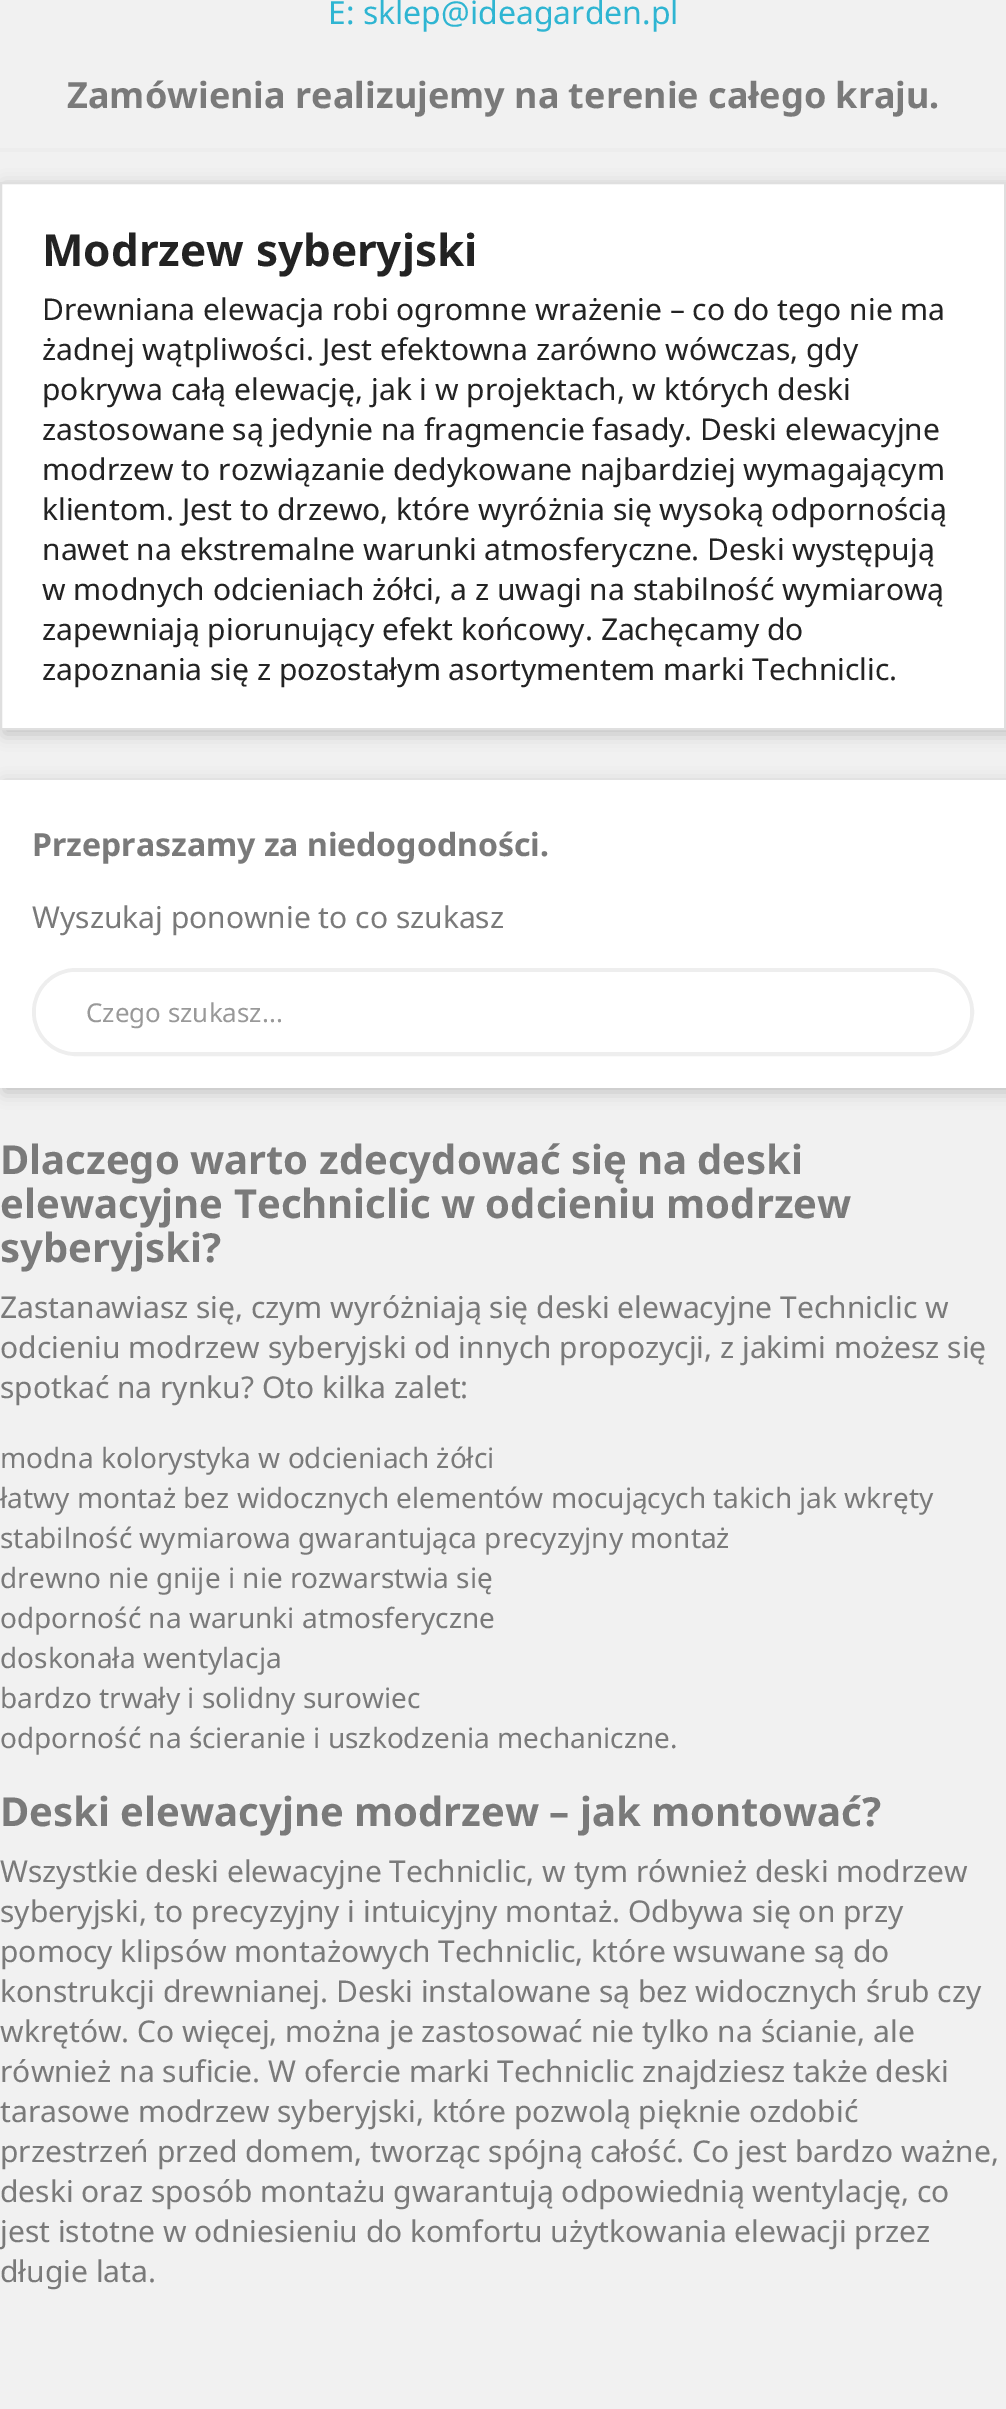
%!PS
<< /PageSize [1006 2409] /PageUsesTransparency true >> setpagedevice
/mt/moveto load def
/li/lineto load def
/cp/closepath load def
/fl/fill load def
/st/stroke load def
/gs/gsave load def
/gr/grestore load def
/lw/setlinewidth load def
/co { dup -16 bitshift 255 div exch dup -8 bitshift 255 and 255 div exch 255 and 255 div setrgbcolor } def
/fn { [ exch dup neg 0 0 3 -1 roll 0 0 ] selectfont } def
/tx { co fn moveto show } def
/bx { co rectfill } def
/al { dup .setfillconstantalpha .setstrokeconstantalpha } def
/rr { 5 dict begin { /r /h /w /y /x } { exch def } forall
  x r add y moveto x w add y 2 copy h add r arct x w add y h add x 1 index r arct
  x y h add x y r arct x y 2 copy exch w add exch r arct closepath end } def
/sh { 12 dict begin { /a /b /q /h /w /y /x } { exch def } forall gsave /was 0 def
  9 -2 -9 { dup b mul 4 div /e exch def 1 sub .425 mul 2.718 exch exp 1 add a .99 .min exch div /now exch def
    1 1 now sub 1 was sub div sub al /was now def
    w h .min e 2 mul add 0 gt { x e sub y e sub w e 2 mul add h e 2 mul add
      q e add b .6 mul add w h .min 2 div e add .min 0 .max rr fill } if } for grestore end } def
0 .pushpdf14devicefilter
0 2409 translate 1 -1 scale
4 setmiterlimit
0 0 1006 2409 16#F1F1F1 bx
0 148 1006 4 16#EDEDED bx
16#000000 co
4 186 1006 548 0 8 .2 sh
16#FFFFFF co
1 183 mt 1005 183 li 1005 729 li 1 729 li cp gs fl gr
16#DFDFDF co
2 lw
st
16#000000 co
4 784 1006 308 0 8 .2 sh
0 780 1006 308 16#FFFFFF bx
16#EEEEEE co
4 lw
34 970 938 84 42 rr st
16#FFFFFF co
36 972 934 80 40 rr fl
(E: sklep@ideagarden.pl) 328 24 /NotoSans-Regular 32 16#2FB5D2 tx
(Zamówienia realizujemy na terenie całego kraju.) 67 108 /NotoSans-Bold 36 16#7A7A7A tx
(Modrzew syberyjski) 42 266 /NotoSans-Bold 44 16#232323 tx
(Drewniana elewacja robi ogromne wrażenie – co do tego nie ma) 42 320 /NotoSans-Regular 30 16#232323 tx
(żadnej wątpliwości. Jest efektowna zarówno wówczas, gdy) 42 360 /NotoSans-Regular 30 16#232323 tx
(pokrywa całą elewację, jak i w projektach, w których deski) 42 400 /NotoSans-Regular 30 16#232323 tx
(zastosowane są jedynie na fragmencie fasady. Deski elewacyjne) 42 440 /NotoSans-Regular 30 16#232323 tx
(modrzew to rozwiązanie dedykowane najbardziej wymagającym) 42 480 /NotoSans-Regular 30 16#232323 tx
(klientom. Jest to drzewo, które wyróżnia się wysoką odpornością) 42 520 /NotoSans-Regular 30 16#232323 tx
(nawet na ekstremalne warunki atmosferyczne. Deski występują) 42 560 /NotoSans-Regular 30 16#232323 tx
(w modnych odcieniach żółci, a z uwagi na stabilność wymiarową) 42 600 /NotoSans-Regular 30 16#232323 tx
(zapewniają piorunujący efekt końcowy. Zachęcamy do) 42 640 /NotoSans-Regular 30 16#232323 tx
(zapoznania się z pozostałym asortymentem marki Techniclic.) 42 680 /NotoSans-Regular 30 16#232323 tx
(Przepraszamy za niedogodności.) 32 856 /NotoSans-Bold 32 16#7A7A7A tx
(Wyszukaj ponownie to co szukasz) 32 928 /NotoSans-Regular 30 16#7A7A7A tx
(Czego szukasz...) 86 1022 /NotoSans-Regular 26 16#999999 tx
(Dlaczego warto zdecydować się na deski) 0 1174 /NotoSans-Bold 40 16#7A7A7A tx
(elewacyjne Techniclic w odcieniu modrzew) 0 1218 /NotoSans-Bold 40 16#7A7A7A tx
(syberyjski?) 0 1262 /NotoSans-Bold 40 16#7A7A7A tx
(Zastanawiasz się, czym wyróżniają się deski elewacyjne Techniclic w) 0 1318 /NotoSans-Regular 30 16#7A7A7A tx
(odcieniu modrzew syberyjski od innych propozycji, z jakimi możesz się) 0 1358 /NotoSans-Regular 30 16#7A7A7A tx
(spotkać na rynku? Oto kilka zalet:) 0 1398 /NotoSans-Regular 30 16#7A7A7A tx
(modna kolorystyka w odcieniach żółci) 0 1468 /NotoSans-Regular 28 16#7A7A7A tx
(łatwy montaż bez widocznych elementów mocujących takich jak wkręty) 0 1508 /NotoSans-Regular 28 16#7A7A7A tx
(stabilność wymiarowa gwarantująca precyzyjny montaż) 0 1548 /NotoSans-Regular 28 16#7A7A7A tx
(drewno nie gnije i nie rozwarstwia się) 0 1588 /NotoSans-Regular 28 16#7A7A7A tx
(odporność na warunki atmosferyczne) 0 1628 /NotoSans-Regular 28 16#7A7A7A tx
(doskonała wentylacja) 0 1668 /NotoSans-Regular 28 16#7A7A7A tx
(bardzo trwały i solidny surowiec) 0 1708 /NotoSans-Regular 28 16#7A7A7A tx
(odporność na ścieranie i uszkodzenia mechaniczne.) 0 1748 /NotoSans-Regular 28 16#7A7A7A tx
(Deski elewacyjne modrzew – jak montować?) 0 1826 /NotoSans-Bold 40 16#7A7A7A tx
(Wszystkie deski elewacyjne Techniclic, w tym również deski modrzew) 0 1882 /NotoSans-Regular 30 16#7A7A7A tx
(syberyjski, to precyzyjny i intuicyjny montaż. Odbywa się on przy) 0 1922 /NotoSans-Regular 30 16#7A7A7A tx
(pomocy klipsów montażowych Techniclic, które wsuwane są do) 0 1962 /NotoSans-Regular 30 16#7A7A7A tx
(konstrukcji drewnianej. Deski instalowane są bez widocznych śrub czy) 0 2002 /NotoSans-Regular 30 16#7A7A7A tx
(wkrętów. Co więcej, można je zastosować nie tylko na ścianie, ale) 0 2042 /NotoSans-Regular 30 16#7A7A7A tx
(również na suficie. W ofercie marki Techniclic znajdziesz także deski) 0 2082 /NotoSans-Regular 30 16#7A7A7A tx
(tarasowe modrzew syberyjski, które pozwolą pięknie ozdobić) 0 2122 /NotoSans-Regular 30 16#7A7A7A tx
(przestrzeń przed domem, tworząc spójną całość. Co jest bardzo ważne,) 0 2162 /NotoSans-Regular 30 16#7A7A7A tx
(deski oraz sposób montażu gwarantują odpowiednią wentylację, co) 0 2202 /NotoSans-Regular 30 16#7A7A7A tx
(jest istotne w odniesieniu do komfortu użytkowania elewacji przez) 0 2242 /NotoSans-Regular 30 16#7A7A7A tx
(długie lata.) 0 2282 /NotoSans-Regular 30 16#7A7A7A tx
.poppdf14devicefilter showpage
